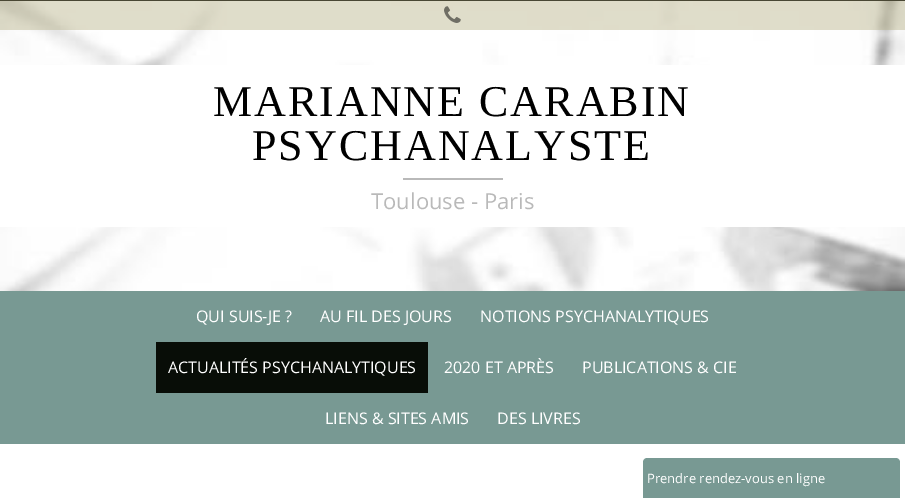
%!PS
<< /PageSize [905 498] /PageUsesTransparency true >> setpagedevice
/mt/moveto load def
/li/lineto load def
/ct/curveto load def
/cp/closepath load def
/fl/fill load def
/co { dup -16 bitshift 255 div exch dup -8 bitshift 255 and 255 div exch 255 and 255 div setrgbcolor } def
/fn { [ exch dup neg 0 0 3 -1 roll 0 0 ] selectfont } def
/tx { co fn moveto show } def
/bx { co rectfill } def
/al { dup .setfillconstantalpha .setstrokeconstantalpha } def
/im { 5 dict begin { /h /w /y /x /name } { exch def } forall
  gsave x y translate w h scale
  w h 8 [w 0 0 h 0 0] name (r) file false 3 colorimage grestore end } def
0 .pushpdf14devicefilter
0 498 translate 1 -1 scale
4 setmiterlimit
0 0 905 498 16#000000 bx
(media/2.raw) 0 1 905 290 im
0.41 al
0 0 905 30 16#B2AC7E bx
1 al
(media/1.raw) 444 6 17 17 im
0 65 905 162 16#FFFFFF bx
403 178 100 2 16#B9B9B9 bx
0 291 905 153 16#789993 bx
156 342 272 51 16#080D07 bx
0 444 905 54 16#FFFFFF bx
16#789993 co
647 458 mt 896 458 li 898 458 900 460 900 462 ct 900 498 li 643 498 li 643 462 li 643 460 645 458 647 458 ct cp fl
/LiberationSerif-Regular 44 fn
16#000000 co
213 116 mt 2 0 (MARIANNE CARABIN) ashow
252 160 mt 2 0 (PSYCHANALYSTE) ashow
(Toulouse - Paris) 371 209 /OpenSans-Regular 22 16#B9B9B9 tx
(QUI SUIS-JE ?) 196 322 /OpenSans-Regular 16 16#FFFFFF tx
(AU FIL DES JOURS) 320 322 /OpenSans-Regular 16 16#FFFFFF tx
(NOTIONS PSYCHANALYTIQUES) 480 322 /OpenSans-Regular 16 16#FFFFFF tx
(ACTUALITÉS PSYCHANALYTIQUES) 168 373 /OpenSans-Regular 16 16#FFFFFF tx
(2020 ET APRÈS) 444 373 /OpenSans-Regular 16 16#FFFFFF tx
(PUBLICATIONS & CIE) 582 373 /OpenSans-Regular 16 16#FFFFFF tx
(LIENS & SITES AMIS) 325 424 /OpenSans-Regular 16 16#FFFFFF tx
(DES LIVRES) 497 424 /OpenSans-Regular 16 16#FFFFFF tx
(Prendre rendez-vous en ligne) 647 483 /OpenSans-Regular 13 16#FFFFFF tx
.poppdf14devicefilter showpage
